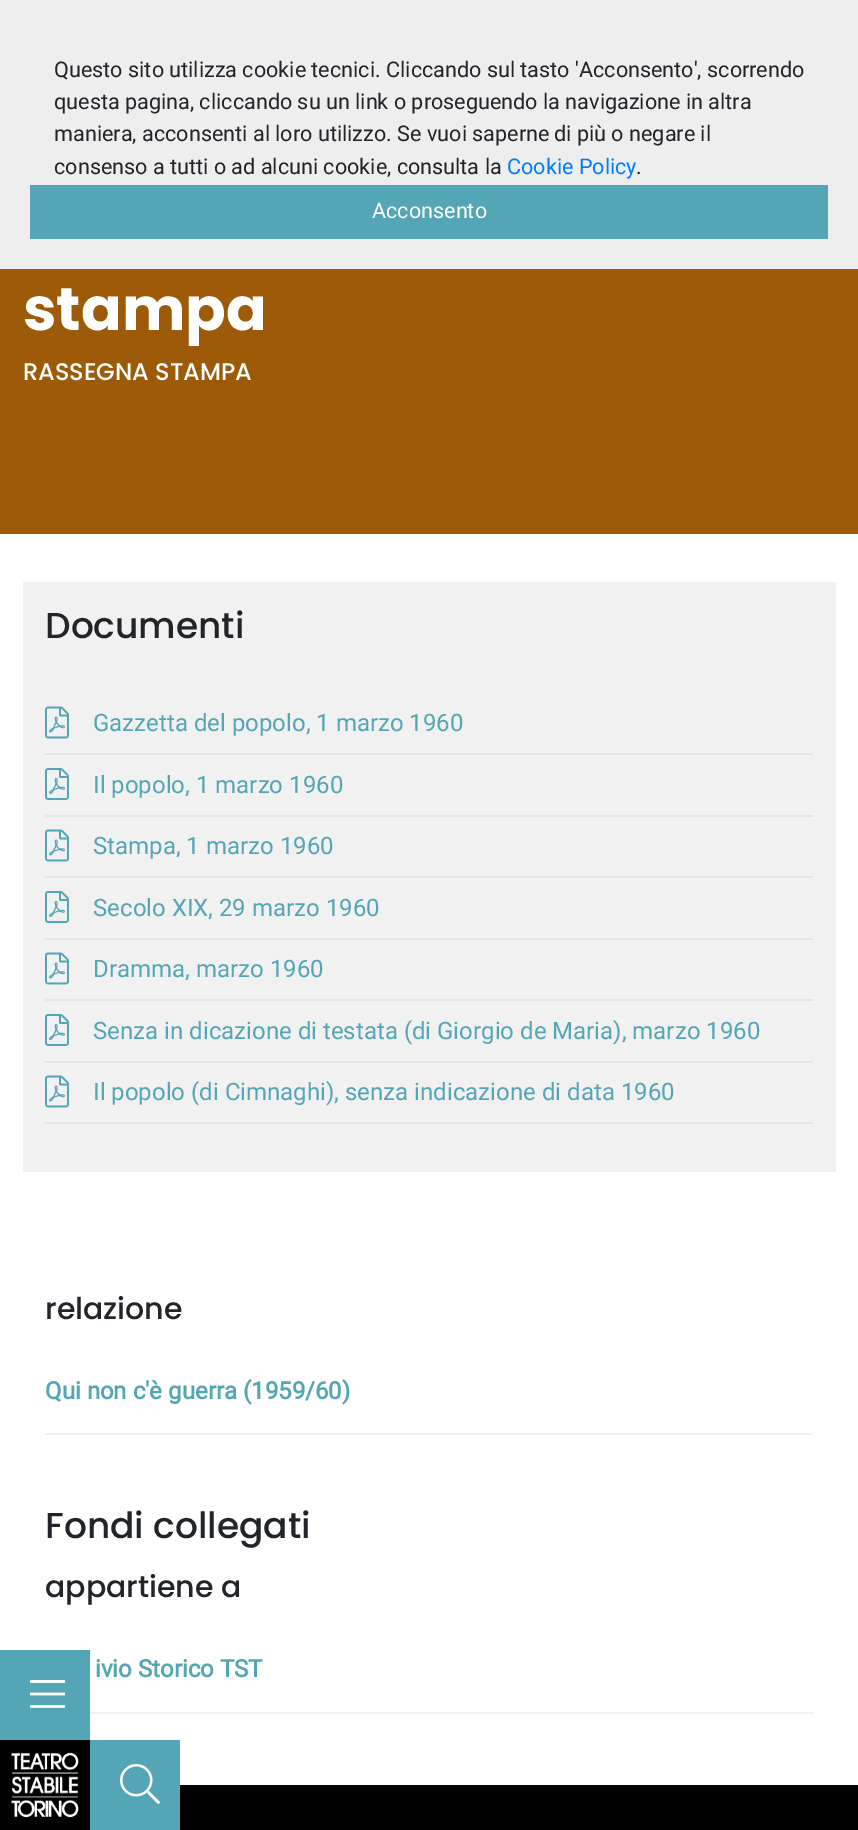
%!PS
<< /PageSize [858 1830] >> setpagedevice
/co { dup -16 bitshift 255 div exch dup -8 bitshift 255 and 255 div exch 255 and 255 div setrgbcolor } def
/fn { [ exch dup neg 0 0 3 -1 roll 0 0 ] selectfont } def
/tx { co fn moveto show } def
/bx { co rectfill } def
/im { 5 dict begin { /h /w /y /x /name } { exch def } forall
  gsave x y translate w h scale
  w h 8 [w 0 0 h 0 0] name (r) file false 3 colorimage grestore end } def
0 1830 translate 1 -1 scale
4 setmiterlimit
0 0 858 1830 16#FFFFFF bx
0 0 858 269 16#EEEEEE bx
30 185 798 54 16#54A5B6 bx
0 269 858 265 16#9D5A08 bx
23 582 813 590 16#F1F1F1 bx
45 753 768 2 16#E5E5E5 bx
(media/1.raw) 45 706 24 33 im
45 815 768 2 16#E5E5E5 bx
(media/2.raw) 45 768 24 32 im
45 876 768 2 16#E5E5E5 bx
(media/1.raw) 45 829 24 33 im
45 938 768 2 16#E5E5E5 bx
(media/2.raw) 45 891 24 32 im
45 999 768 2 16#E5E5E5 bx
(media/1.raw) 45 952 24 33 im
45 1061 768 2 16#E5E5E5 bx
(media/2.raw) 45 1014 24 32 im
45 1122 768 2 16#E5E5E5 bx
(media/1.raw) 45 1075 24 33 im
45 1433 768 2 16#F2F2F2 bx
90 1712 723 2 16#F2F2F2 bx
0 1740 90 90 16#000000 bx
0 1650 90 90 16#54A5B6 bx
(media/3.raw) 30 1680 35 28 im
(media/4.raw) 11 1752 68 66 im
90 1740 90 90 16#54A5B6 bx
(media/5.raw) 120 1764 40 40 im
180 1785 678 45 16#000000 bx
(Questo sito utilizza cookie tecnici. Cliccando sul tasto 'Acconsento', scorrendo) 54 77 /Roboto-Regular 21.6 16#212529 tx
(questa pagina, cliccando su un link o proseguendo la navigazione in altra) 54 109 /Roboto-Regular 21.6 16#212529 tx
(maniera, acconsenti al loro utilizzo. Se vuoi saperne) 54 141 /Roboto-Regular 21.6 16#212529 tx
(di più o negare il) 554 141 /Roboto-Regular 21.6 16#212529 tx
(consenso a tutti o ad alcuni cookie, consulta la) 54 174 /Roboto-Regular 21.6 16#212529 tx
(Cookie Policy) 507 174 /Roboto-Regular 21.6 16#007BFF tx
(.) 636 174 /Roboto-Regular 21.6 16#212529 tx
(Acconsento) 372 218 /Roboto-Regular 21.6 16#FFFFFF tx
(stampa) 23 330 /Poppins-Bold 60 16#FFFFFF tx
(RASSEGNA STAMPA) 23 380 /Poppins-Medium 24 16#FFFFFF tx
(Documenti) 45 638 /Poppins-Medium 36 16#212529 tx
(Gazzetta del popolo, 1 marzo 1960) 93 731 /Roboto-Regular 24 16#54A5B6 tx
(Il popolo, 1 marzo 1960) 93 793 /Roboto-Regular 24 16#54A5B6 tx
(Stampa, 1 marzo 1960) 93 854 /Roboto-Regular 24 16#54A5B6 tx
(Secolo XIX, 29 marzo 1960) 93 916 /Roboto-Regular 24 16#54A5B6 tx
(Dramma, marzo 1960) 93 977 /Roboto-Regular 24 16#54A5B6 tx
(Senza in dicazione di testata \(di Giorgio de Maria\), marzo 1960) 93 1039 /Roboto-Regular 24 16#54A5B6 tx
(Il popolo \(di Cimnaghi\), senza indicazione di data 1960) 93 1100 /Roboto-Regular 24 16#54A5B6 tx
(relazione) 45 1319 /Poppins-Medium 30 16#212529 tx
(Qui non c'è guerra \(1959/60\)) 45 1399 /Roboto-Bold 24 16#54A5B6 tx
(Fondi collegati) 45 1538 /Poppins-Medium 36 16#212529 tx
(appartiene a) 45 1597 /Poppins-Medium 30 16#212529 tx
(ivio Storico TST) 95 1677 /Roboto-Bold 24 16#54A5B6 tx
showpage
